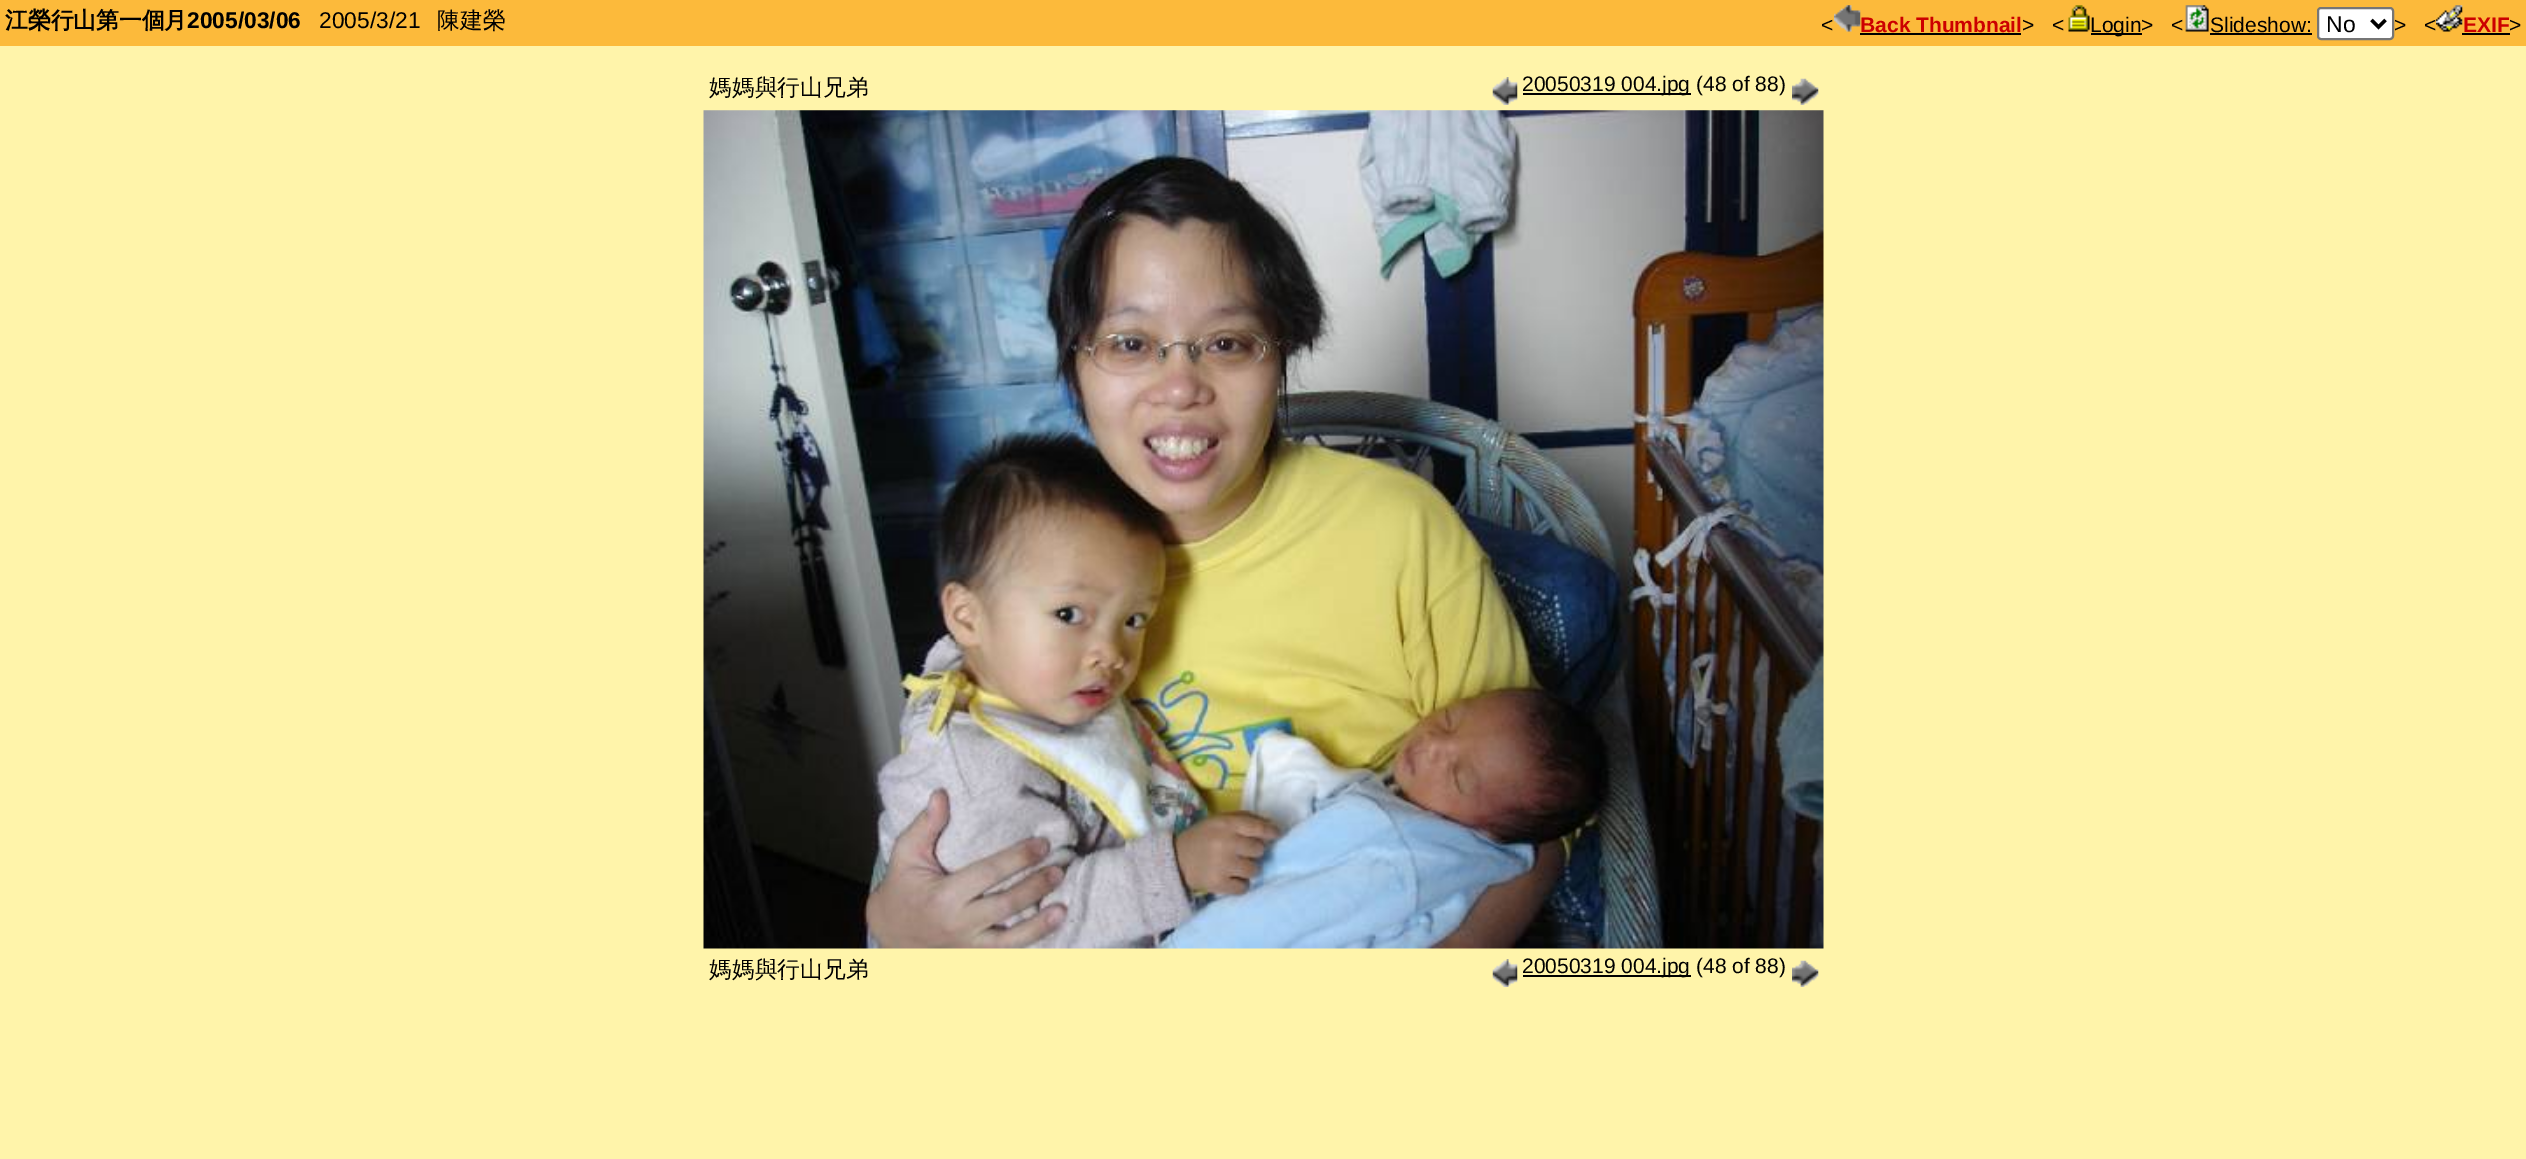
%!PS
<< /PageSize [2526 1159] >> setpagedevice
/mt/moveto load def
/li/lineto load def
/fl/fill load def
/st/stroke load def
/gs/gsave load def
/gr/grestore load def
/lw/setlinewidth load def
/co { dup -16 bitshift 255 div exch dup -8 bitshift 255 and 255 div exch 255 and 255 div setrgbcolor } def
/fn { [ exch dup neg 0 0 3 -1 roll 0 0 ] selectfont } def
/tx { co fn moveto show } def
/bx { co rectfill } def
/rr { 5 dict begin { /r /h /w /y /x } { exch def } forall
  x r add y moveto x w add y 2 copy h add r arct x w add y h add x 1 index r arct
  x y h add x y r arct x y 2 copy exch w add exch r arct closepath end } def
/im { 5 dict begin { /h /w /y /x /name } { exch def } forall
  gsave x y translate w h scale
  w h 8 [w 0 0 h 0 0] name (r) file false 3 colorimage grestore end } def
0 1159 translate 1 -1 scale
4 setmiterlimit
0 0 2526 1159 16#FFF4AA bx
0 0 2526 46 16#FCBA3B bx
(media/1.raw) 1834 5 27 27 im
1860 33 161 2 16#000000 bx
(media/2.raw) 2068 5 22 27 im
2091 33 51 2 16#000000 bx
(media/3.raw) 2185 5 24 27 im
2210 33 102 2 16#000000 bx
16#FFFFFF co
2318 8 75 31 3 rr gs fl gr
16#767676 co
2 lw
st
16#000000 co
3.5 lw
2371.5 20 mt 2378.5 27 li 2385.5 20 li st
(media/4.raw) 2436 5 27 27 im
2462 33 48 2 16#000000 bx
(media/5.raw) 1492 77 26 28 im
1523 93 168 2 16#000000 bx
(media/6.raw) 1792 78 27 27 im
(media/7.raw) 703 110 1121 839 im
(media/5.raw) 1492 959 26 28 im
1523 975 168 2 16#000000 bx
(media/6.raw) 1792 960 27 27 im
(江榮行山第一個月) 5 28 /WenQuanYiZenHei-Bold 22.75 16#000000 tx
(2005/03/06) 187 28 /LiberationSans-Bold 22.75 16#000000 tx
(2005/3/21) 319 28 /LiberationSans-Regular 22.75 16#000000 tx
(陳建榮) 437 28 /WenQuanYiZenHei-Medium 22.75 16#000000 tx
(<) 1821 32 /LiberationSans-Regular 21 16#000000 tx
(Back Thumbnail) 1860 32 /LiberationSans-Bold 21 16#CC0000 tx
(>   <) 2022 32 /LiberationSans-Regular 21 16#000000 tx
(Login>   <) 2090 32 /LiberationSans-Regular 21 16#000000 tx
(Slideshow:) 2210 32 /LiberationSans-Regular 21 16#000000 tx
(No) 2326 32 /LiberationSans-Regular 23 16#000000 tx
(>   <) 2394 32 /LiberationSans-Regular 21 16#000000 tx
(EXIF) 2463 32 /LiberationSans-Bold 21 16#CC0000 tx
(>) 2509 32 /LiberationSans-Regular 21 16#000000 tx
(媽媽與行山兄弟) 709 95 /WenQuanYiZenHei-Medium 22.75 16#000000 tx
(20050319 004.jpg \(48 of 88\)) 1522 91 /LiberationSans-Regular 21 16#000000 tx
(媽媽與行山兄弟) 709 977 /WenQuanYiZenHei-Medium 22.75 16#000000 tx
(20050319 004.jpg \(48 of 88\)) 1522 973 /LiberationSans-Regular 21 16#000000 tx
showpage
